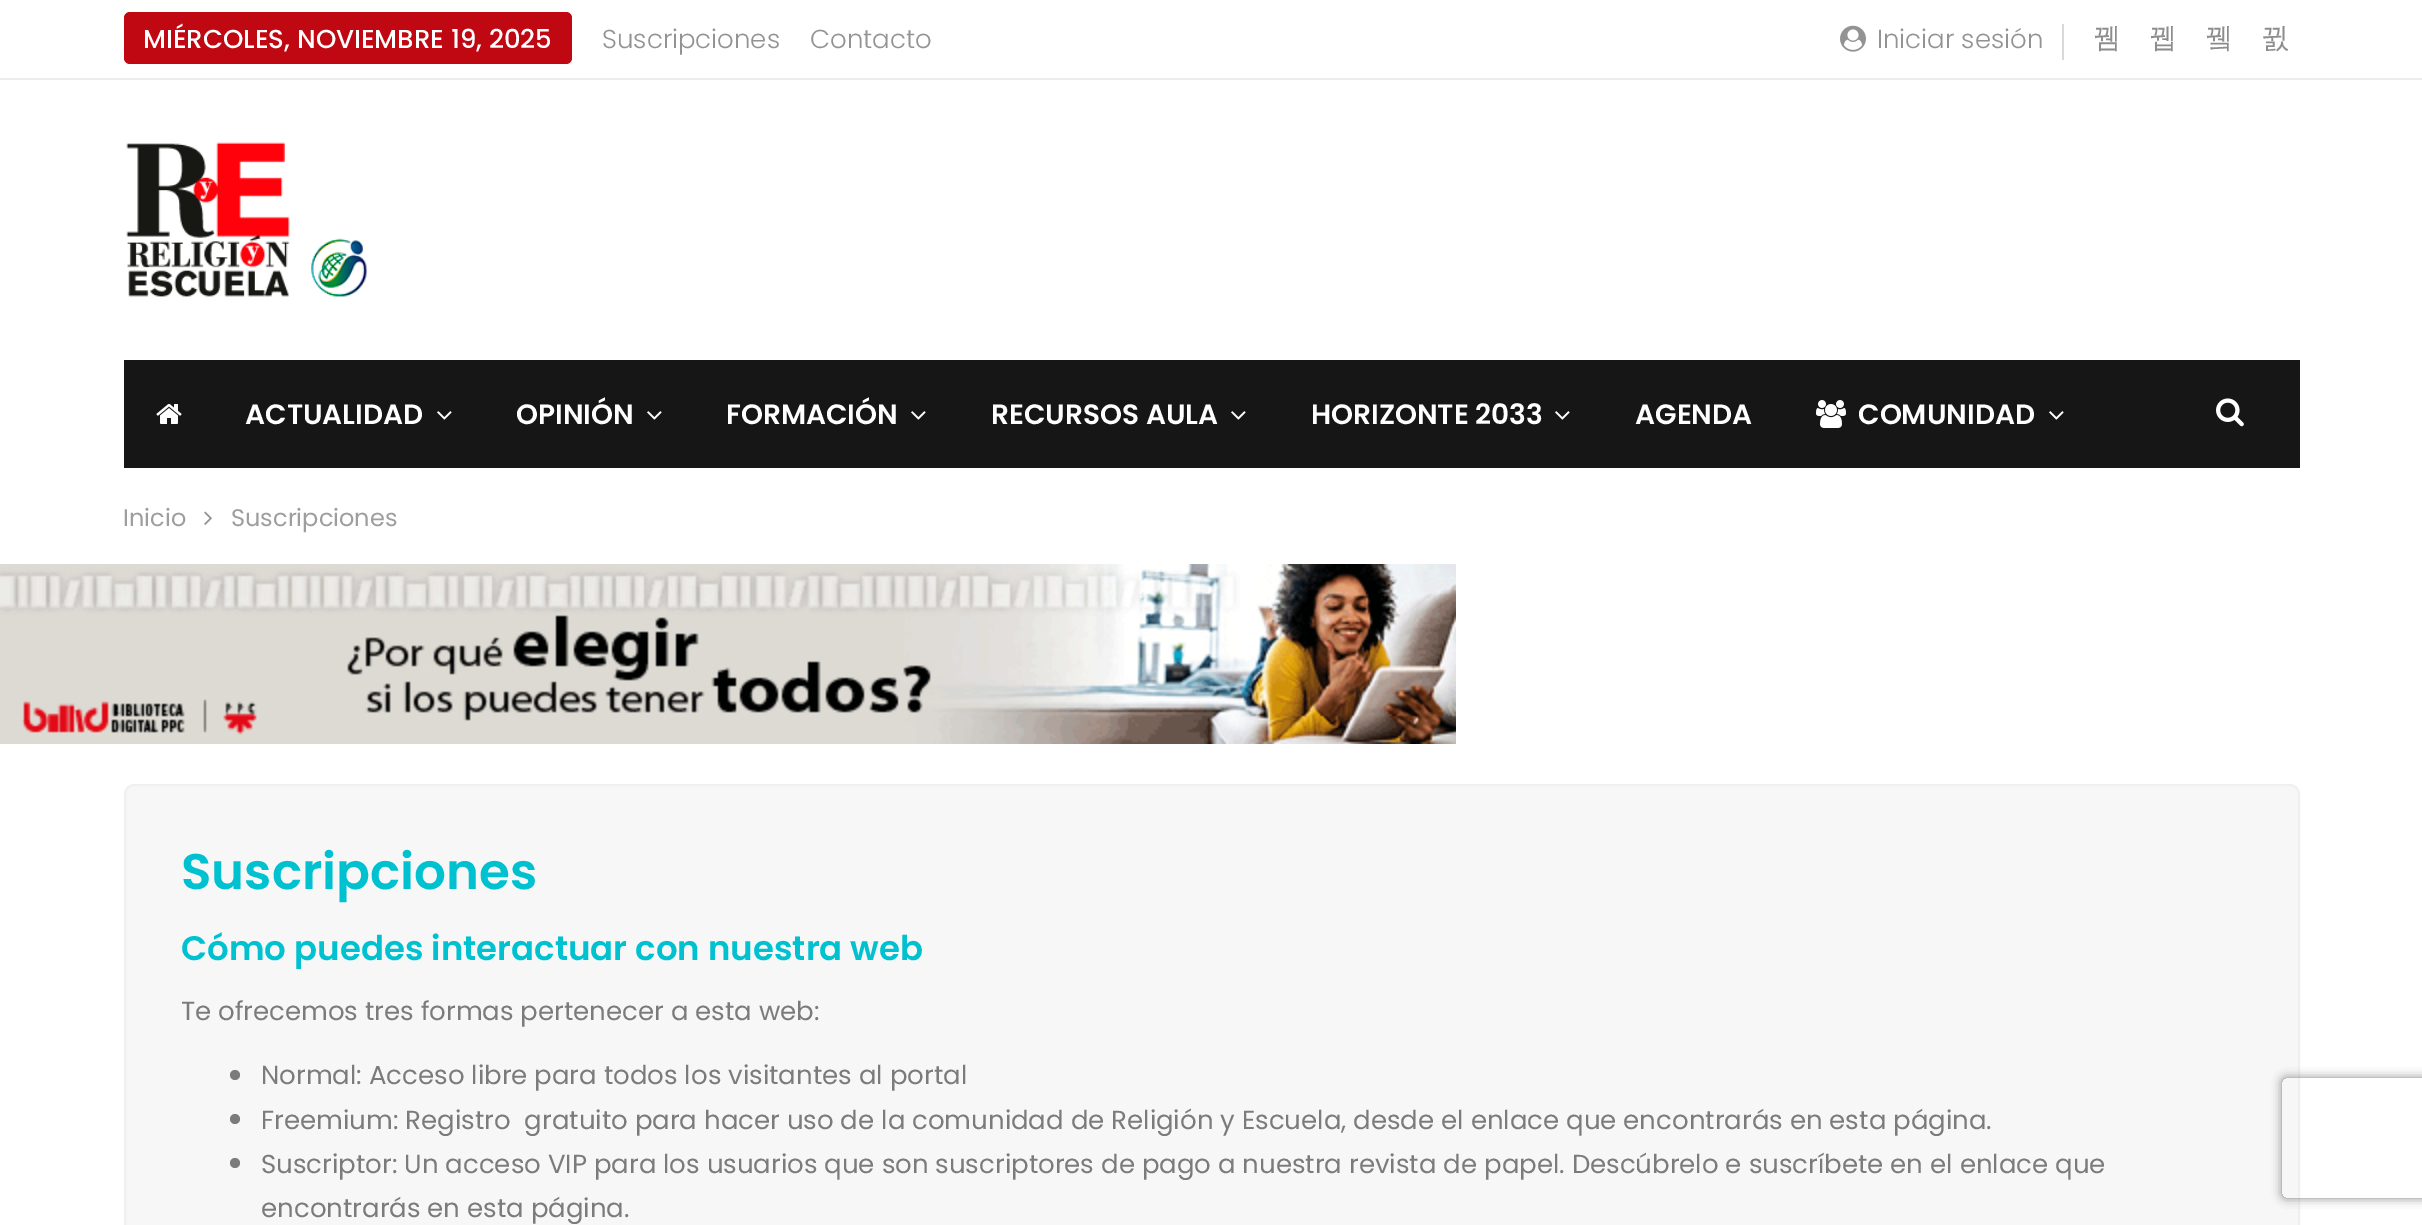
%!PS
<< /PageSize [2422 1225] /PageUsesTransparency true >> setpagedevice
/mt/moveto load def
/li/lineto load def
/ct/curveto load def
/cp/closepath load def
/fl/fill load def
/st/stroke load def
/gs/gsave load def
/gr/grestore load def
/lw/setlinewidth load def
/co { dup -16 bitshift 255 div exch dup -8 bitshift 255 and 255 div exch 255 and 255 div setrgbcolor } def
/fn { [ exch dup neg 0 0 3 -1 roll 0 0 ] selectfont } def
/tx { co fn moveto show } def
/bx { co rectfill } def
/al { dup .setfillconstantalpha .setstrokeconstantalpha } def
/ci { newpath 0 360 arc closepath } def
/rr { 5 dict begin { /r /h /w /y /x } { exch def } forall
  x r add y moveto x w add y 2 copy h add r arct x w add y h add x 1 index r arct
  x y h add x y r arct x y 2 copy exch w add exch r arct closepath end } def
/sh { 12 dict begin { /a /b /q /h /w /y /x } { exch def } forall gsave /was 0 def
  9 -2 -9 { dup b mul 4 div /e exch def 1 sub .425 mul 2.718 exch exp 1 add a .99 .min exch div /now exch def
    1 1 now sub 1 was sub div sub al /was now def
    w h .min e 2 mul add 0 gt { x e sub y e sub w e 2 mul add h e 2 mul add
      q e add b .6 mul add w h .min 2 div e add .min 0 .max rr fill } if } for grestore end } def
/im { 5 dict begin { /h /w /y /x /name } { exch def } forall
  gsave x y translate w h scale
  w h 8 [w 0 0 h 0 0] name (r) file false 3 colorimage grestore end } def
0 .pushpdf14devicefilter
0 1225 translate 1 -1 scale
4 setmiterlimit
0 0 2422 1225 16#FFFFFF bx
0 78 2422 2 16#EDEDED bx
16#BF0811 co
124 12 448 52 6 rr fl
(media/1.raw) 1840 25 26 27 im
2062 24 2 36 16#D9D9D9 bx
(media/2.raw) 126 142 242 155 im
124 360 2176 108 16#161616 bx
(media/3.raw) 156 404 26 20 im
(media/4.raw) 437 411 15 9 im
(media/4.raw) 647 411 15 9 im
(media/4.raw) 911 411 15 9 im
(media/4.raw) 1231 411 15 9 im
(media/4.raw) 1555 411 15 9 im
(media/5.raw) 1816 400 30 28 im
(media/4.raw) 2049 411 15 9 im
(media/6.raw) 2216 398 28 29 im
(media/7.raw) 204 511 8 14 im
(media/8.raw) 0 564 1456 180 im
16#F7F7F7 co
125 785 2174 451 9 rr gs fl gr
16#F0F0F0 co
2 lw
st
16#7B7B7B co
235 1075 5 ci fl
235 1119 5 ci fl
235 1163 5 ci fl
gs
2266 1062 mt 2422 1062 li 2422 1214 li 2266 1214 li cp 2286 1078 mt 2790 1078 li 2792 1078 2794 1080 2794 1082 ct 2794 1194 li 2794 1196 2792 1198 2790 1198 ct 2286 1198 li 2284 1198 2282 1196 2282 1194 ct 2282 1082 li 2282 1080 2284 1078 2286 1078 ct cp eoclip newpath
16#808080 co
2282 1078 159 120 4 5 1 sh
gr
(MIÉRCOLES, NOVIEMBRE 19, 2025) 143 48 /Poppins-Medium 26 16#FFFFFF tx
(Suscripciones) 602 48 /Poppins-Light 26 16#939393 tx
(Contacto) 810 48 /Poppins-Light 26 16#939393 tx
(Iniciar sesión) 1877 48 /Poppins-Light 26 16#939393 tx
(뀀) 2093 47 /WenQuanYiZenHei-Medium 28 16#8D8D8D tx
(뀁) 2149 47 /WenQuanYiZenHei-Medium 28 16#8D8D8D tx
(뀈) 2205 47 /WenQuanYiZenHei-Medium 28 16#8D8D8D tx
(뀘) 2261 47 /WenQuanYiZenHei-Medium 28 16#8D8D8D tx
(ACTUALIDAD) 245 424 /Poppins-SemiBold 28 16#FFFFFF tx
(OPINIÓN) 516 424 /Poppins-SemiBold 28 16#FFFFFF tx
(FORMACIÓN) 726 424 /Poppins-SemiBold 28 16#FFFFFF tx
(RECURSOS AULA) 991 424 /Poppins-SemiBold 28 16#FFFFFF tx
(HORIZONTE 2033) 1311 424 /Poppins-SemiBold 28 16#FFFFFF tx
(AGENDA) 1635 424 /Poppins-SemiBold 28 16#FFFFFF tx
(COMUNIDAD) 1858 424 /Poppins-SemiBold 28 16#FFFFFF tx
(Inicio) 123 526 /Poppins-Regular 24 16#9E9E9E tx
(Suscripciones) 231 526 /Poppins-Regular 24 16#9E9E9E tx
(Suscripciones) 181 889 /Poppins-SemiBold 50 16#00C1CF tx
(Cómo puedes interactuar con nuestra web) 181 960 /Poppins-SemiBold 34 16#00C1CF tx
(Te ofrecemos tres formas pertenecer a esta web:) 181 1020 /Poppins-Regular 26 16#7B7B7B tx
(Normal: Acceso libre para todos los visitantes al portal) 261 1084 /Poppins-Regular 26 16#7B7B7B tx
(Freemium: Registro  gratuito para hacer uso de la comunidad de Religión y Escuela, desde el enlace que encontrarás en esta página.) 261 1129 /Poppins-Regular 26 16#7B7B7B tx
(Suscriptor: Un acceso VIP para los usuarios que son suscriptores de pago a nuestra revista de papel. Descúbrelo e suscríbete en el enlace que) 261 1173 /Poppins-Regular 26 16#7B7B7B tx
(encontrarás en esta página.) 261 1217 /Poppins-Regular 26 16#7B7B7B tx
.poppdf14devicefilter showpage
